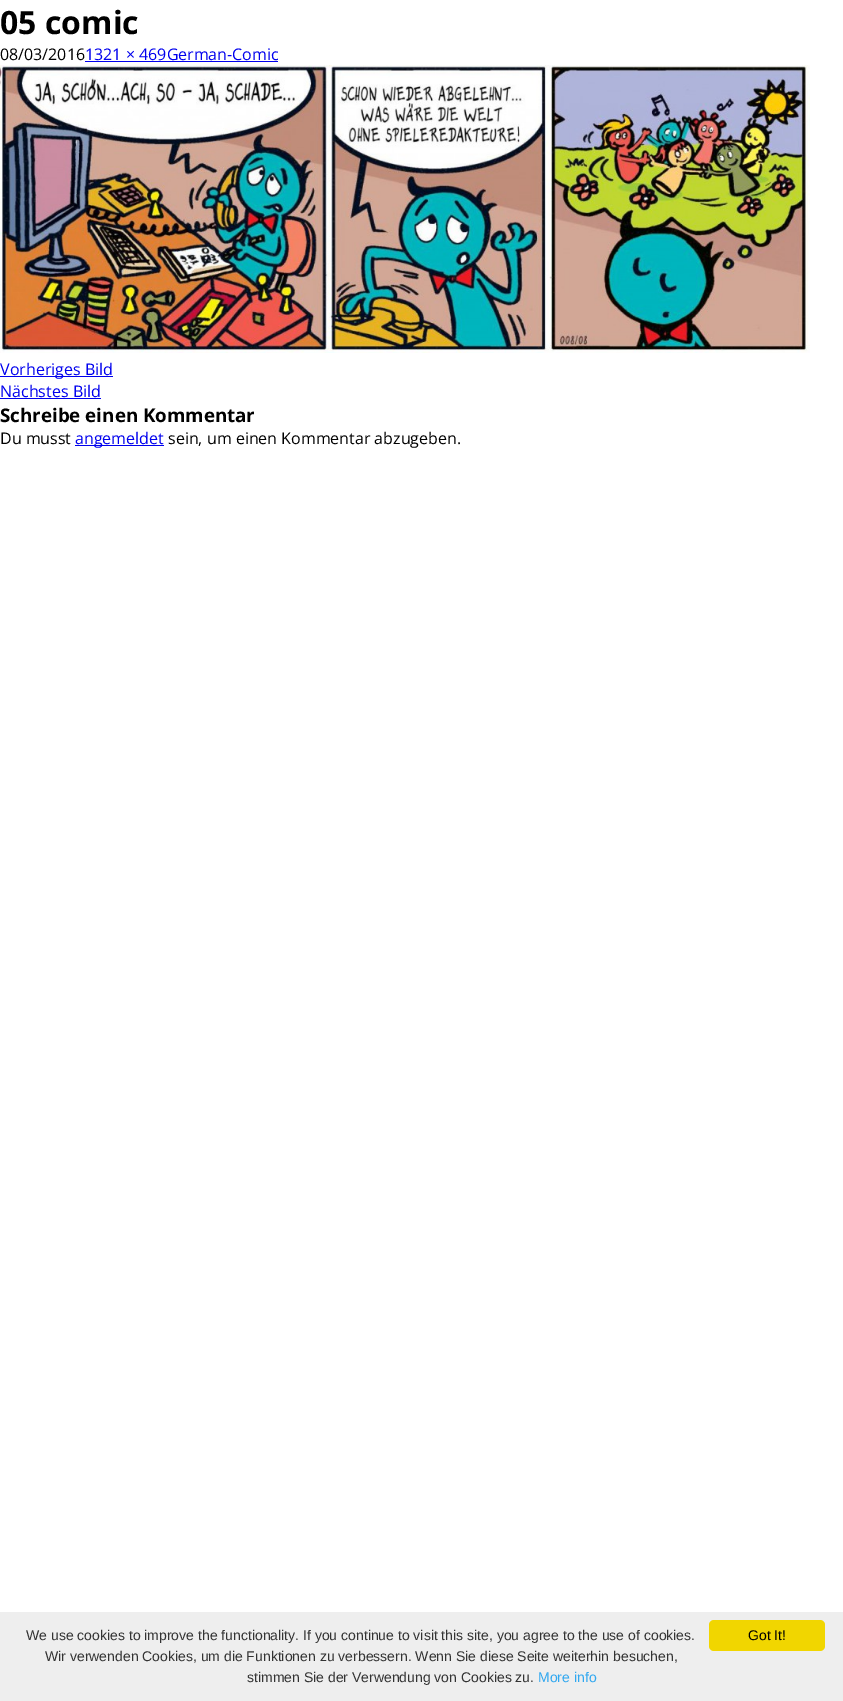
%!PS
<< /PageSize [843 1701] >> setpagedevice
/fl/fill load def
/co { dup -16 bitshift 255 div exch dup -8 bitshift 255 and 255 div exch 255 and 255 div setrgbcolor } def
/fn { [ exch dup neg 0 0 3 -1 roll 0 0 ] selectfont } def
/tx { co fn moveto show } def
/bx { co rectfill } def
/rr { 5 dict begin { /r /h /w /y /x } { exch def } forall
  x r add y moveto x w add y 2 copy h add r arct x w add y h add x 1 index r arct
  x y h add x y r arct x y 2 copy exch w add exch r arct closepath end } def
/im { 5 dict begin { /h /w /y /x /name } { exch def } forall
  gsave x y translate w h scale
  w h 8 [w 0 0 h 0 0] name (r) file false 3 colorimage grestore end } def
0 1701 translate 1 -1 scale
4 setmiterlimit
0 0 843 1701 16#FFFFFF bx
85 61 193 1 16#0000EE bx
(media/1.raw) 0 65 810 288 im
0 376 113 1 16#0000EE bx
0 398 101 1 16#0000EE bx
75 445 89 1 16#0000EE bx
0 1612 843 89 16#EEEEEE bx
16#F1D600 co
709 1620 116 31 5 rr fl
(05 comic) 0 34 /OpenSans-Bold 32 16#000000 tx
(08/03/2016) 0 60 /OpenSans-Regular 16 16#000000 tx
(1321 × 469German-Comic) 85 60 /OpenSans-Regular 16 16#0000EE tx
(Vorheriges Bild) 0 375 /OpenSans-Regular 16 16#0000EE tx
(Nächstes Bild) 0 397 /OpenSans-Regular 16 16#0000EE tx
(Schreibe einen Kommentar) 0 422 /OpenSans-Bold 18.75 16#000000 tx
(Du musst) 0 444 /OpenSans-Regular 16 16#000000 tx
(angemeldet) 75 444 /OpenSans-Regular 16 16#0000EE tx
(sein, um einen Kommentar abzugeben.) 168 444 /OpenSans-Regular 16 16#000000 tx
(We use cookies to improve the functionality. If you continue to visit this site, you agree to the use of cookies.) 26 1640 /LiberationSans-Regular 14 16#333333 tx
(Wir verwenden Cookies, um die Funktionen zu verbessern. Wenn Sie diese Seite weiterhin besuchen,) 45 1661 /LiberationSans-Regular 14 16#333333 tx
(stimmen Sie der Verwendung von Cookies zu.) 247 1682 /LiberationSans-Regular 14 16#333333 tx
(More info) 538 1682 /LiberationSans-Regular 14 16#31A8F0 tx
(Got It!) 748 1640 /LiberationSans-Regular 14 16#000000 tx
showpage
